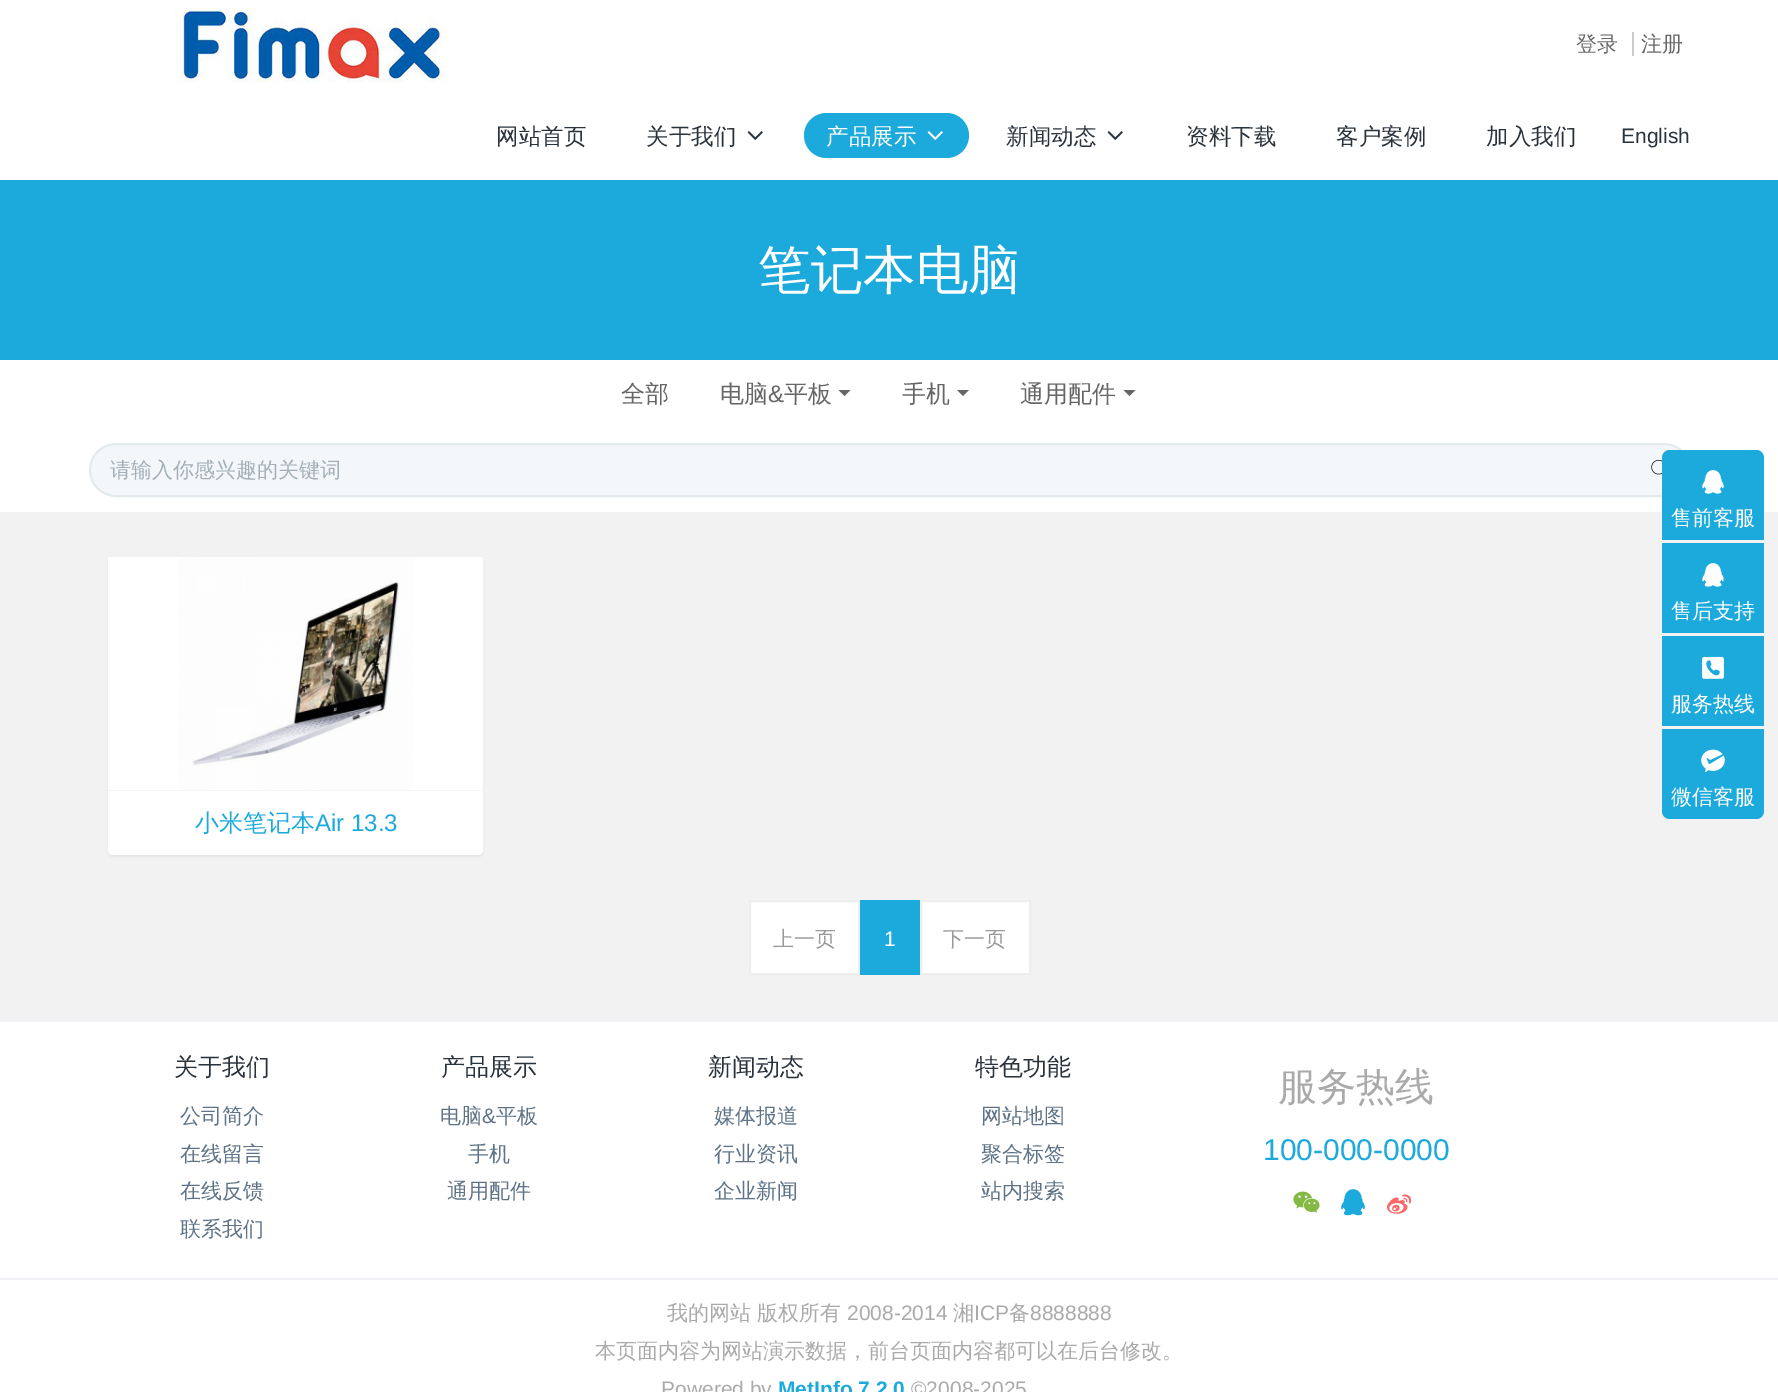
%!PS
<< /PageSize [1778 1392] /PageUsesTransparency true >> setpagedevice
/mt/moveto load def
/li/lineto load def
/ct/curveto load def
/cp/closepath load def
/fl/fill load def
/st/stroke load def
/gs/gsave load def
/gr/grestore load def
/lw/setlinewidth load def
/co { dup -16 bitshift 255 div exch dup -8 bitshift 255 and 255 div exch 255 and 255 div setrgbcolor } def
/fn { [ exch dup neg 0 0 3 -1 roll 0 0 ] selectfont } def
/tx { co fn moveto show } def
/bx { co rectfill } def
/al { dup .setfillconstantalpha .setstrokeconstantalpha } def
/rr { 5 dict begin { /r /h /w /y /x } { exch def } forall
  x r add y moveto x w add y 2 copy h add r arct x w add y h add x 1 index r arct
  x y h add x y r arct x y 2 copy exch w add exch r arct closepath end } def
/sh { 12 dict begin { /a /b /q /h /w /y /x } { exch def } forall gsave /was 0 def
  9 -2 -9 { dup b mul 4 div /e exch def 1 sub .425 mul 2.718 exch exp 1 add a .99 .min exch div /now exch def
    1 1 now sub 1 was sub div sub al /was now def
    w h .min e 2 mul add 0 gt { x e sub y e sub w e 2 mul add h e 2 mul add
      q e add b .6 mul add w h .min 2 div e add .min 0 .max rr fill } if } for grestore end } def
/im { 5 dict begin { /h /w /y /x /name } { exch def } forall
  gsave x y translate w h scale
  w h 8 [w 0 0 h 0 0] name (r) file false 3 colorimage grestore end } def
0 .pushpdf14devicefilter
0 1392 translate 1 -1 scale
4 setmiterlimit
0 0 1778 1392 16#FFFFFF bx
(media/1.raw) 175 7 273 76 im
1632 32 2 24 16#CCCCCC bx
(media/2.raw) 747 131 16 9 im
16#1BAADB co
804 113 165 45 22.5 rr fl
(media/3.raw) 927 131 16 9 im
(media/2.raw) 1107 131 16 9 im
0 180 1778 180 16#1BAADB bx
16#666666 co
838.5 390 mt 850.5 390 li 844.5 396 li cp fl
957 390 mt 969 390 li 963 396 li cp fl
1123.5 390 mt 1135.5 390 li 1129.5 396 li cp fl
16#F3F7F9 co
90 444 1600 52 26 rr gs fl gr
16#E4EAEC co
2 lw
st
(media/4.raw) 1651 459 11 16 im
0 512 1778 508 16#F2F2F2 bx
16#1BAADB co
1670 450 mt 1756 450 li 1760.5 450 1764 453.5 1764 458 ct 1764 540 li 1662 540 li 1662 458 li 1662 453.5 1665.5 450 1670 450 ct cp fl
(media/5.raw) 1702 470 22 24 im
1662 543 102 90 16#1BAADB bx
(media/5.raw) 1702 563 22 24 im
1662 636 102 90 16#1BAADB bx
(media/6.raw) 1702 656 22 23 im
1662 729 mt 1764 729 li 1764 811 li 1764 815.5 1760.5 819 1756 819 ct 1670 819 li 1665.5 819 1662 815.5 1662 811 ct cp fl
(media/7.raw) 1701 749 24 23 im
16#000000 co
108 558 375 299 5 1 .05 sh
16#FFFFFF co
108 557 375 298 5 rr fl
16#F3F7F9 co
111 557 mt 480 557 li 481.5 557 483 558.5 483 560 ct 483 791 li 108 791 li 108 560 li 108 558.5 109.5 557 111 557 ct cp fl
(media/8.raw) 108 557 375 233 im
16#FFFFFF co
750 901 mt 859 901 li 859 974 li 750 974 li cp gs fl gr
16#EEEEEE co
st
860 900 60 75 16#1BAADB bx
16#FFFFFF co
921 901 mt 1030 901 li 1030 974 li 921 974 li cp gs fl gr
16#EEEEEE co
st
0 1020 1778 2 16#F0F2F5 bx
(media/9.raw) 1293 1191 27 22 im
(media/10.raw) 1341 1189 24 27 im
(media/11.raw) 1387 1194 25 20 im
0 1278 1778 2 16#F0F2F5 bx
(登录) 1576 51 /WenQuanYiZenHei-Medium 21 16#666666 tx
(注册) 1641 51 /WenQuanYiZenHei-Medium 21 16#666666 tx
(网站首页) 496 144 /WenQuanYiZenHei-Medium 22.5 16#2A333C tx
(关于我们) 646 144 /WenQuanYiZenHei-Medium 22.5 16#2A333C tx
(产品展示) 826 144 /WenQuanYiZenHei-Medium 22.5 16#FFFFFF tx
(新闻动态) 1006 144 /WenQuanYiZenHei-Medium 22.5 16#2A333C tx
(资料下载) 1186 144 /WenQuanYiZenHei-Medium 22.5 16#2A333C tx
(客户案例) 1336 144 /WenQuanYiZenHei-Medium 22.5 16#2A333C tx
(加入我们) 1486 144 /WenQuanYiZenHei-Medium 22.5 16#2A333C tx
(English) 1621 143 /LiberationSans-Regular 21 16#2A333C tx
(笔记本电脑) 758 288 /WenQuanYiZenHei-Medium 52.5 16#FFFFFF tx
(全部) 621 402 /WenQuanYiZenHei-Medium 24 16#666666 tx
(电脑) 720 402 /WenQuanYiZenHei-Medium 24 16#666666 tx
(&) 768 402 /LiberationSans-Regular 24 16#666666 tx
(平板) 784 402 /WenQuanYiZenHei-Medium 24 16#666666 tx
(手机) 902 402 /WenQuanYiZenHei-Medium 24 16#666666 tx
(通用配件) 1020 402 /WenQuanYiZenHei-Medium 24 16#666666 tx
(请输入你感兴趣的关键词) 110 477 /WenQuanYiZenHei-Medium 21 16#A3AFB7 tx
(售前客服) 1671 525 /WenQuanYiZenHei-Medium 21 16#FFFFFF tx
(售后支持) 1671 618 /WenQuanYiZenHei-Medium 21 16#FFFFFF tx
(服务热线) 1671 711 /WenQuanYiZenHei-Medium 21 16#FFFFFF tx
(微信客服) 1671 804 /WenQuanYiZenHei-Medium 21 16#FFFFFF tx
(小米笔记本) 195 831 /WenQuanYiZenHei-Medium 24 16#1BAADB tx
(Air 13.3) 315 831 /LiberationSans-Regular 24 16#1BAADB tx
(上一页) 773 946 /WenQuanYiZenHei-Medium 21 16#999999 tx
(1) 884 946 /LiberationSans-Regular 21 16#FFFFFF tx
(下一页) 943 946 /WenQuanYiZenHei-Medium 21 16#999999 tx
(关于我们) 174 1075 /WenQuanYiZenHei-Medium 24 16#2A333C tx
(公司简介) 180 1123 /WenQuanYiZenHei-Medium 21 16#5E7387 tx
(在线留言) 180 1161 /WenQuanYiZenHei-Medium 21 16#5E7387 tx
(在线反馈) 180 1198 /WenQuanYiZenHei-Medium 21 16#5E7387 tx
(联系我们) 180 1236 /WenQuanYiZenHei-Medium 21 16#5E7387 tx
(产品展示) 441 1075 /WenQuanYiZenHei-Medium 24 16#2A333C tx
(电脑) 440 1123 /WenQuanYiZenHei-Medium 21 16#5E7387 tx
(&) 482 1123 /LiberationSans-Regular 21 16#5E7387 tx
(平板) 496 1123 /WenQuanYiZenHei-Medium 21 16#5E7387 tx
(手机) 468 1161 /WenQuanYiZenHei-Medium 21 16#5E7387 tx
(通用配件) 447 1198 /WenQuanYiZenHei-Medium 21 16#5E7387 tx
(新闻动态) 708 1075 /WenQuanYiZenHei-Medium 24 16#2A333C tx
(媒体报道) 714 1123 /WenQuanYiZenHei-Medium 21 16#5E7387 tx
(行业资讯) 714 1161 /WenQuanYiZenHei-Medium 21 16#5E7387 tx
(企业新闻) 714 1198 /WenQuanYiZenHei-Medium 21 16#5E7387 tx
(特色功能) 975 1075 /WenQuanYiZenHei-Medium 24 16#2A333C tx
(网站地图) 981 1123 /WenQuanYiZenHei-Medium 21 16#5E7387 tx
(聚合标签) 981 1161 /WenQuanYiZenHei-Medium 21 16#5E7387 tx
(站内搜索) 981 1198 /WenQuanYiZenHei-Medium 21 16#5E7387 tx
(服务热线) 1278 1100 /WenQuanYiZenHei-Medium 39 16#AAAAAA tx
(100-000-0000) 1263 1160 /LiberationSans-Regular 30 16#1BAADB tx
(我的网站 版权所有) 667 1320 /WenQuanYiZenHei-Medium 21 16#AAAAAA tx
(2008-2014) 847 1320 /LiberationSans-Regular 21 16#AAAAAA tx
(湘) 953 1320 /WenQuanYiZenHei-Medium 21 16#AAAAAA tx
(ICP) 974 1320 /LiberationSans-Regular 21 16#AAAAAA tx
(备) 1009 1320 /WenQuanYiZenHei-Medium 21 16#AAAAAA tx
(8888888) 1030 1320 /LiberationSans-Regular 21 16#AAAAAA tx
(本页面内容为网站演示数据，前台页面内容都可以在后台修改。) 595 1358 /WenQuanYiZenHei-Medium 21 16#AAAAAA tx
(Powered by) 661 1396 /LiberationSans-Regular 21 16#AAAAAA tx
(MetInfo 7.2.0) 778 1396 /LiberationSans-Bold 21 16#1BAADB tx
(©2008-2025) 911 1396 /LiberationSans-Regular 21 16#AAAAAA tx
.poppdf14devicefilter showpage
